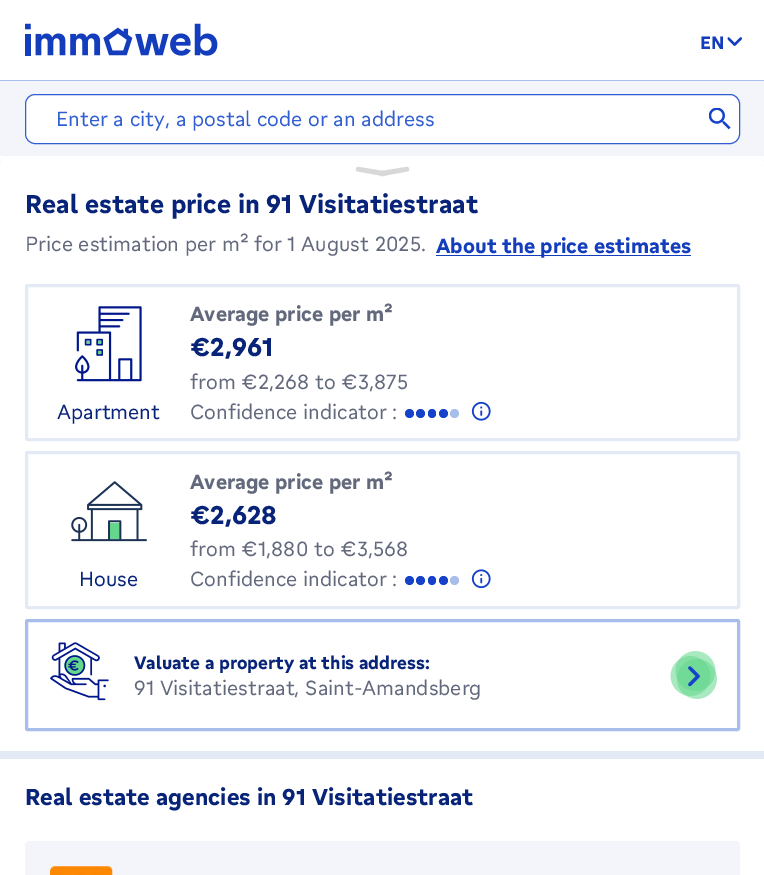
%!PS
<< /PageSize [764 875] >> setpagedevice
/mt/moveto load def
/li/lineto load def
/ct/curveto load def
/cp/closepath load def
/fl/fill load def
/st/stroke load def
/gs/gsave load def
/gr/grestore load def
/lw/setlinewidth load def
/co { dup -16 bitshift 255 div exch dup -8 bitshift 255 and 255 div exch 255 and 255 div setrgbcolor } def
/fn { [ exch dup neg 0 0 3 -1 roll 0 0 ] selectfont } def
/tx { co fn moveto show } def
/bx { co rectfill } def
/ci { newpath 0 360 arc closepath } def
/rr { 5 dict begin { /r /h /w /y /x } { exch def } forall
  x r add y moveto x w add y 2 copy h add r arct x w add y h add x 1 index r arct
  x y h add x y r arct x y 2 copy exch w add exch r arct closepath end } def
/im { 5 dict begin { /h /w /y /x /name } { exch def } forall
  gsave x y translate w h scale
  w h 8 [w 0 0 h 0 0] name (r) file false 3 colorimage grestore end } def
0 875 translate 1 -1 scale
4 setmiterlimit
0 0 764 875 16#FFFFFF bx
0 80 764 1 16#A8BEEA bx
(media/1.raw) 25 23 193 33 im
(media/2.raw) 727 37 16 9 im
0 81 764 75 16#F3F5FA bx
16#FFFFFF co
25.5 94.5 714 49 9.5 rr gs fl gr
16#315ED1 co
st
(media/3.raw) 709 108 22 22 im
16#E4EAF5 co
10 156 mt 755 156 li 760.5 156 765 160.5 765 166 ct 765 875 li 0 875 li 0 166 li 0 160.5 4.5 156 10 156 ct cp fl
16#FFFFFF co
10 156 mt 755 156 li 760.5 156 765 160.5 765 166 ct 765 751 li 0 751 li 0 166 li 0 160.5 4.5 156 10 156 ct cp fl
16#D8D8D8 co
381.5 171 mt 406 167 li 407.5 166.5 409 167.5 409 169 ct 409.5 170 408.5 171.5 407 171.5 ct 382.5 176 li 381 176.5 380 175.5 379.5 174 ct 379.5 172.5 380 171.5 381.5 171 ct cp fl
359 167 mt 383.5 171 li 385 171.5 385.5 172.5 385.5 174 ct 385 175.5 384 176.5 382.5 176 ct 358 171.5 li 356.5 171.5 355.5 170 356 169 ct 356 167.5 357.5 166.5 359 167 ct cp fl
436 255 255 1 16#133DBD bx
16#E4EAF5 co
3 lw
26.5 285.5 712 154 1 rr st
(media/4.raw) 75 306 67 76 im
16#1542C9 co
409.5 413.5 4.5 ci fl
420.5 413.5 4.5 ci fl
428 409 8 9 4 rr fl
443.5 413.5 4.5 ci fl
16#A8BEEA co
454.5 413.5 4.5 ci fl
(media/5.raw) 471 401 20 20 im
16#E4EAF5 co
26.5 452.5 712 155 1 rr st
(media/6.raw) 71 481 76 61 im
16#1542C9 co
409.5 580.5 4.5 ci fl
420.5 580.5 4.5 ci fl
428 576 8 9 4 rr fl
443.5 580.5 4.5 ci fl
16#A8BEEA co
454.5 580.5 4.5 ci fl
(media/7.raw) 471 569 20 20 im
26.5 620.5 712 109 1 rr st
(media/8.raw) 50 642 59 59 im
(media/9.raw) 670 651 47 48 im
0 759 764 116 16#FFFFFF bx
16#F3F5FA co
30 841 mt 735 841 li 738 841 740 843 740 846 ct 740 875 li 25 875 li 25 846 li 25 843 27 841 30 841 ct cp fl
(media/10.raw) 50 866 63 9 im
(EN) 700 49 /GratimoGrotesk-Bold 17.5 16#133DBD tx
(Enter a city, a postal code or an address) 56 126 /GratimoGrotesk-Regular 20 16#315ED1 tx
(Real estate price in 91 Visitatiestraat) 25 213 /GratimoGrotesk-Bold 25 16#082479 tx
(Price estimation per m² for 1 August 2025.) 25 251 /GratimoGrotesk-Regular 20 16#63697D tx
(About the price estimates) 436 253 /GratimoGrotesk-Bold 20 16#133DBD tx
(Apartment) 57 419 /GratimoGrotesk-Regular 20 16#082479 tx
(Average price per m²) 190 321 /GratimoGrotesk-Bold 20 16#63697D tx
(€2,961) 190 356 /GratimoGrotesk-Bold 25 16#082479 tx
(from €2,268 to €3,875) 190 389 /GratimoGrotesk-Regular 20 16#63697D tx
(Confidence indicator :) 190 419 /GratimoGrotesk-Regular 20 16#63697D tx
(House) 79 586 /GratimoGrotesk-Regular 20 16#082479 tx
(Average price per m²) 190 489 /GratimoGrotesk-Bold 20 16#63697D tx
(€2,628) 190 524 /GratimoGrotesk-Bold 25 16#082479 tx
(from €1,880 to €3,568) 190 556 /GratimoGrotesk-Regular 20 16#63697D tx
(Confidence indicator :) 190 586 /GratimoGrotesk-Regular 20 16#63697D tx
(Valuate a property at this address:) 134 669 /GratimoGrotesk-Bold 17.5 16#082479 tx
(91 Visitatiestraat, Saint-Amandsberg) 134 695 /GratimoGrotesk-Regular 20 16#63697D tx
(Real estate agencies in 91 Visitatiestraat) 25 805 /GratimoGrotesk-Bold 22.5 16#082479 tx
showpage
